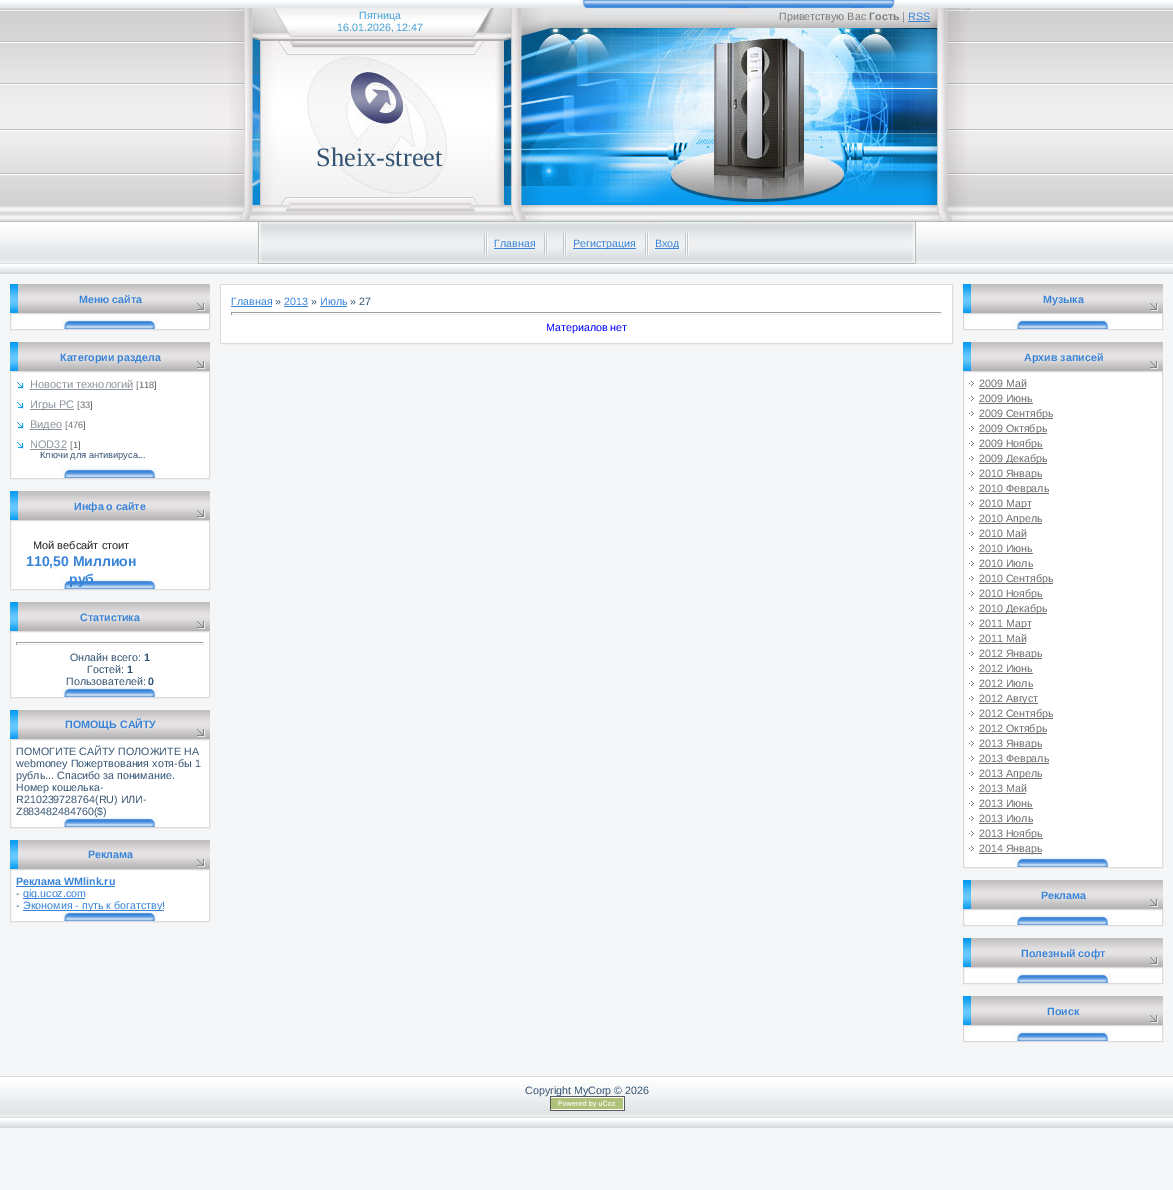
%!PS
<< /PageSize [1173 1190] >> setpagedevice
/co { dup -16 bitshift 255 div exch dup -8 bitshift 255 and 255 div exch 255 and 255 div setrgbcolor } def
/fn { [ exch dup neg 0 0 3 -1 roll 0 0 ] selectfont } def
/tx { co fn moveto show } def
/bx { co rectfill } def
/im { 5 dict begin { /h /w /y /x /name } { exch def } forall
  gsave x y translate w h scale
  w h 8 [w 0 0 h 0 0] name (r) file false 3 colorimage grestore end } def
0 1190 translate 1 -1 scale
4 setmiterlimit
0 0 1173 1190 16#F5F6F7 bx
(media/1.raw) 0 0 1173 222 im
(media/2.raw) 204 8 330 214 im
(media/3.raw) 534 0 436 222 im
908 21 22 1 16#3984D8 bx
(media/4.raw) 0 222 1173 52 im
(media/5.raw) 258 222 658 52 im
(media/6.raw) 484 233 4 22 im
494 248 41 1 16#3984D8 bx
(media/6.raw) 544 233 4 22 im
(media/6.raw) 563 233 4 22 im
573 248 63 1 16#3984D8 bx
(media/6.raw) 645 233 4 22 im
655 248 24 1 16#3984D8 bx
(media/6.raw) 685 233 4 22 im
(media/7.raw) 10 284 200 29 im
11 314 198 15 16#FFFFFF bx
(media/8.raw) 61 319 98 10 im
16#DCDADA co
10.5 313.5 199 16 rectstroke
(media/7.raw) 10 342 200 29 im
11 372 198 106 16#FFFFFF bx
(media/8.raw) 61 468 98 10 im
16#DCDADA co
10.5 371.5 199 107 rectstroke
(media/9.raw) 17 382 7 7 im
30 389 103 1 16#8D949E bx
(media/9.raw) 17 402 7 7 im
30 409 44 1 16#8D949E bx
(media/9.raw) 17 422 7 7 im
30 429 32 1 16#8D949E bx
(media/9.raw) 17 442 7 7 im
30 449 37 1 16#8D949E bx
(media/7.raw) 10 491 200 29 im
11 521 198 68 16#FFFFFF bx
(media/8.raw) 61 579 98 10 im
16#DCDADA co
10.5 520.5 199 69 rectstroke
(media/7.raw) 10 602 200 29 im
11 632 198 65 16#FFFFFF bx
(media/8.raw) 61 687 98 10 im
16#DCDADA co
10.5 631.5 199 66 rectstroke
16 642 188 1 16#9F9F9F bx
203 642 1 3 16#EEEEEE bx
16 644 188 1 16#EEEEEE bx
16 642 1 3 16#9F9F9F bx
(media/7.raw) 10 710 200 29 im
11 740 198 87 16#FFFFFF bx
(media/8.raw) 61 817 98 10 im
16#DCDADA co
10.5 739.5 199 88 rectstroke
(media/7.raw) 10 840 200 29 im
11 870 198 51 16#FFFFFF bx
(media/8.raw) 61 911 98 10 im
16#DCDADA co
10.5 869.5 199 52 rectstroke
16 886 99 1 16#3984D8 bx
23 898 62 1 16#3984D8 bx
23 910 141 1 16#3984D8 bx
16#DCDADA co
220.5 284.5 732 59 rectstroke
221 285 731 58 16#FFFFFF bx
231 306 41 1 16#3984D8 bx
284 306 24 1 16#3984D8 bx
320 306 27 1 16#3984D8 bx
231 312 711 1 16#9F9F9F bx
941 312 1 3 16#EEEEEE bx
231 314 711 1 16#EEEEEE bx
231 312 1 3 16#9F9F9F bx
(media/7.raw) 963 284 200 29 im
964 314 198 15 16#FFFFFF bx
(media/8.raw) 1014 319 98 10 im
16#DCDADA co
963.5 313.5 199 16 rectstroke
(media/7.raw) 963 342 200 29 im
964 372 198 495 16#FFFFFF bx
(media/8.raw) 1014 857 98 10 im
16#DCDADA co
963.5 371.5 199 496 rectstroke
(media/10.raw) 969 381 5 5 im
979 388 47 1 16#6E6E6E bx
(media/10.raw) 969 396 5 5 im
979 403 54 1 16#6E6E6E bx
(media/10.raw) 969 411 5 5 im
979 418 74 1 16#6E6E6E bx
(media/10.raw) 969 426 5 5 im
979 433 68 1 16#6E6E6E bx
(media/10.raw) 969 441 5 5 im
979 448 64 1 16#6E6E6E bx
(media/10.raw) 969 456 5 5 im
979 463 68 1 16#6E6E6E bx
(media/10.raw) 969 471 5 5 im
979 478 63 1 16#6E6E6E bx
(media/10.raw) 969 486 5 5 im
979 493 70 1 16#6E6E6E bx
(media/10.raw) 969 501 5 5 im
979 508 52 1 16#6E6E6E bx
(media/10.raw) 969 516 5 5 im
979 523 63 1 16#6E6E6E bx
(media/10.raw) 969 531 5 5 im
979 538 47 1 16#6E6E6E bx
(media/10.raw) 969 546 5 5 im
979 553 54 1 16#6E6E6E bx
(media/10.raw) 969 561 5 5 im
979 568 54 1 16#6E6E6E bx
(media/10.raw) 969 576 5 5 im
979 583 74 1 16#6E6E6E bx
(media/10.raw) 969 591 5 5 im
979 598 64 1 16#6E6E6E bx
(media/10.raw) 969 606 5 5 im
979 613 68 1 16#6E6E6E bx
(media/10.raw) 969 621 5 5 im
979 628 52 1 16#6E6E6E bx
(media/10.raw) 969 636 5 5 im
979 643 47 1 16#6E6E6E bx
(media/10.raw) 969 651 5 5 im
979 658 63 1 16#6E6E6E bx
(media/10.raw) 969 666 5 5 im
979 673 54 1 16#6E6E6E bx
(media/10.raw) 969 681 5 5 im
979 688 54 1 16#6E6E6E bx
(media/10.raw) 969 696 5 5 im
979 703 59 1 16#6E6E6E bx
(media/10.raw) 969 711 5 5 im
979 718 74 1 16#6E6E6E bx
(media/10.raw) 969 726 5 5 im
979 733 68 1 16#6E6E6E bx
(media/10.raw) 969 741 5 5 im
979 748 63 1 16#6E6E6E bx
(media/10.raw) 969 756 5 5 im
979 763 70 1 16#6E6E6E bx
(media/10.raw) 969 771 5 5 im
979 778 63 1 16#6E6E6E bx
(media/10.raw) 969 786 5 5 im
979 793 47 1 16#6E6E6E bx
(media/10.raw) 969 801 5 5 im
979 808 54 1 16#6E6E6E bx
(media/10.raw) 969 816 5 5 im
979 823 54 1 16#6E6E6E bx
(media/10.raw) 969 831 5 5 im
979 838 64 1 16#6E6E6E bx
(media/10.raw) 969 846 5 5 im
979 853 63 1 16#6E6E6E bx
(media/7.raw) 963 880 200 29 im
964 910 198 15 16#FFFFFF bx
(media/8.raw) 1014 915 98 10 im
16#DCDADA co
963.5 909.5 199 16 rectstroke
(media/7.raw) 963 938 200 29 im
964 968 198 15 16#FFFFFF bx
(media/8.raw) 1014 973 98 10 im
16#DCDADA co
963.5 967.5 199 16 rectstroke
(media/7.raw) 963 996 200 29 im
964 1026 198 15 16#FFFFFF bx
(media/8.raw) 1014 1031 98 10 im
16#DCDADA co
963.5 1025.5 199 16 rectstroke
(media/11.raw) 0 1076 1173 52 im
(Пятница) 359 19 /LiberationSans-Regular 10.7 16#44A1D6 tx
(16.01.2026, 12:47) 337 31 /LiberationSans-Regular 10.7 16#44A1D6 tx
(Sheix-street) 316 166 /LiberationSerif-Regular 26.5 16#355473 tx
(Приветствую Вас) 779 20 /LiberationSans-Regular 10.7 16#7B7B7B tx
(Гость) 869 20 /LiberationSans-Bold 10.7 16#7B7B7B tx
(|) 902 20 /LiberationSans-Regular 10.7 16#7B7B7B tx
(RSS) 908 20 /LiberationSans-Regular 10.7 16#3984D8 tx
(Главная) 494 247 /LiberationSans-Regular 10.7 16#3984D8 tx
(Регистрация) 573 247 /LiberationSans-Regular 10.7 16#3984D8 tx
(Вход) 655 247 /LiberationSans-Regular 10.7 16#3984D8 tx
(Меню сайта) 79 303 /LiberationSans-Bold 10.7 16#3984D8 tx
(Категории раздела) 60 361 /LiberationSans-Bold 10.7 16#3984D8 tx
(Новости технологий) 30 388 /LiberationSans-Regular 11 16#8D949E tx
([118]) 136 388 /LiberationSans-Regular 9.25 16#6E6E6E tx
(Игры PC) 30 408 /LiberationSans-Regular 11 16#8D949E tx
([33]) 77 408 /LiberationSans-Regular 9.25 16#6E6E6E tx
(Видео) 30 428 /LiberationSans-Regular 11 16#8D949E tx
([476]) 65 428 /LiberationSans-Regular 9.25 16#6E6E6E tx
(NOD32) 30 448 /LiberationSans-Regular 11 16#8D949E tx
([1]) 70 448 /LiberationSans-Regular 9.25 16#6E6E6E tx
(Ключи для антивируса...) 40 458 /LiberationSans-Regular 9.25 16#355473 tx
(Инфа о сайте) 74 510 /LiberationSans-Bold 10.7 16#3984D8 tx
(Мой вебсайт стоит) 33 549 /LiberationSans-Regular 11 16#222222 tx
(110,50 Миллион) 26 566 /LiberationSans-Bold 14 16#3984D8 tx
(руб) 69 584 /LiberationSans-Bold 14 16#3984D8 tx
(Статистика) 80 621 /LiberationSans-Bold 10.7 16#3984D8 tx
(Онлайн всего:) 70 661 /LiberationSans-Regular 10.7 16#355473 tx
(1) 144 661 /LiberationSans-Bold 10.7 16#355473 tx
(Гостей:) 87 673 /LiberationSans-Regular 10.7 16#355473 tx
(1) 127 673 /LiberationSans-Bold 10.7 16#355473 tx
(Пользователей:) 66 685 /LiberationSans-Regular 10.7 16#355473 tx
(0) 148 685 /LiberationSans-Bold 10.7 16#355473 tx
(ПОМОЩЬ САЙТУ) 65 728 /LiberationSans-Bold 10.7 16#3984D8 tx
(ПОМОГИТЕ САЙТУ ПОЛОЖИТЕ НА) 16 755 /LiberationSans-Regular 10.7 16#355473 tx
(webmoney Пожертвования хотя-бы 1) 16 767 /LiberationSans-Regular 10.7 16#355473 tx
(рубль... Спасибо за понимание.) 16 779 /LiberationSans-Regular 10.7 16#355473 tx
(Номер кошелька-) 16 791 /LiberationSans-Regular 10.7 16#355473 tx
(R210239728764\(RU\) ИЛИ-) 16 803 /LiberationSans-Regular 10.7 16#355473 tx
(Z883482484760\($\)) 16 815 /LiberationSans-Regular 10.7 16#355473 tx
(Реклама) 88 858 /LiberationSans-Bold 10.7 16#3984D8 tx
(Реклама WMlink.ru) 16 885 /LiberationSans-Bold 10.7 16#3984D8 tx
(-) 16 897 /LiberationSans-Regular 10.7 16#355473 tx
(qiq.ucoz.com) 23 897 /LiberationSans-Regular 10.7 16#3984D8 tx
(-) 16 909 /LiberationSans-Regular 10.7 16#355473 tx
(Экономия - путь к богатству!) 23 909 /LiberationSans-Regular 10.7 16#3984D8 tx
(Главная) 231 305 /LiberationSans-Regular 10.7 16#3984D8 tx
(») 275 305 /LiberationSans-Regular 10.7 16#355473 tx
(2013) 284 305 /LiberationSans-Regular 10.7 16#3984D8 tx
(») 311 305 /LiberationSans-Regular 10.7 16#355473 tx
(Июль) 320 305 /LiberationSans-Regular 10.7 16#3984D8 tx
(» 27) 350 305 /LiberationSans-Regular 10.7 16#355473 tx
(Материалов нет) 546 331 /LiberationSans-Regular 10.7 16#0000FF tx
(Музыка) 1043 303 /LiberationSans-Bold 10.7 16#3984D8 tx
(Архив записей) 1024 361 /LiberationSans-Bold 10.7 16#3984D8 tx
(2009 Май) 979 387 /LiberationSans-Regular 10.7 16#6E6E6E tx
(2009 Июнь) 979 402 /LiberationSans-Regular 10.7 16#6E6E6E tx
(2009 Сентябрь) 979 417 /LiberationSans-Regular 10.7 16#6E6E6E tx
(2009 Октябрь) 979 432 /LiberationSans-Regular 10.7 16#6E6E6E tx
(2009 Ноябрь) 979 447 /LiberationSans-Regular 10.7 16#6E6E6E tx
(2009 Декабрь) 979 462 /LiberationSans-Regular 10.7 16#6E6E6E tx
(2010 Январь) 979 477 /LiberationSans-Regular 10.7 16#6E6E6E tx
(2010 Февраль) 979 492 /LiberationSans-Regular 10.7 16#6E6E6E tx
(2010 Март) 979 507 /LiberationSans-Regular 10.7 16#6E6E6E tx
(2010 Апрель) 979 522 /LiberationSans-Regular 10.7 16#6E6E6E tx
(2010 Май) 979 537 /LiberationSans-Regular 10.7 16#6E6E6E tx
(2010 Июнь) 979 552 /LiberationSans-Regular 10.7 16#6E6E6E tx
(2010 Июль) 979 567 /LiberationSans-Regular 10.7 16#6E6E6E tx
(2010 Сентябрь) 979 582 /LiberationSans-Regular 10.7 16#6E6E6E tx
(2010 Ноябрь) 979 597 /LiberationSans-Regular 10.7 16#6E6E6E tx
(2010 Декабрь) 979 612 /LiberationSans-Regular 10.7 16#6E6E6E tx
(2011 Март) 979 627 /LiberationSans-Regular 10.7 16#6E6E6E tx
(2011 Май) 979 642 /LiberationSans-Regular 10.7 16#6E6E6E tx
(2012 Январь) 979 657 /LiberationSans-Regular 10.7 16#6E6E6E tx
(2012 Июнь) 979 672 /LiberationSans-Regular 10.7 16#6E6E6E tx
(2012 Июль) 979 687 /LiberationSans-Regular 10.7 16#6E6E6E tx
(2012 Август) 979 702 /LiberationSans-Regular 10.7 16#6E6E6E tx
(2012 Сентябрь) 979 717 /LiberationSans-Regular 10.7 16#6E6E6E tx
(2012 Октябрь) 979 732 /LiberationSans-Regular 10.7 16#6E6E6E tx
(2013 Январь) 979 747 /LiberationSans-Regular 10.7 16#6E6E6E tx
(2013 Февраль) 979 762 /LiberationSans-Regular 10.7 16#6E6E6E tx
(2013 Апрель) 979 777 /LiberationSans-Regular 10.7 16#6E6E6E tx
(2013 Май) 979 792 /LiberationSans-Regular 10.7 16#6E6E6E tx
(2013 Июнь) 979 807 /LiberationSans-Regular 10.7 16#6E6E6E tx
(2013 Июль) 979 822 /LiberationSans-Regular 10.7 16#6E6E6E tx
(2013 Ноябрь) 979 837 /LiberationSans-Regular 10.7 16#6E6E6E tx
(2014 Январь) 979 852 /LiberationSans-Regular 10.7 16#6E6E6E tx
(Реклама) 1041 899 /LiberationSans-Bold 10.7 16#3984D8 tx
(Полезный софт) 1021 957 /LiberationSans-Bold 10.7 16#3984D8 tx
(Поиск) 1047 1015 /LiberationSans-Bold 10.7 16#3984D8 tx
(Copyright MyCorp © 2026) 525 1094 /LiberationSans-Regular 10.7 16#355473 tx
(media/12.raw) 550 1096 75 15 im
showpage
